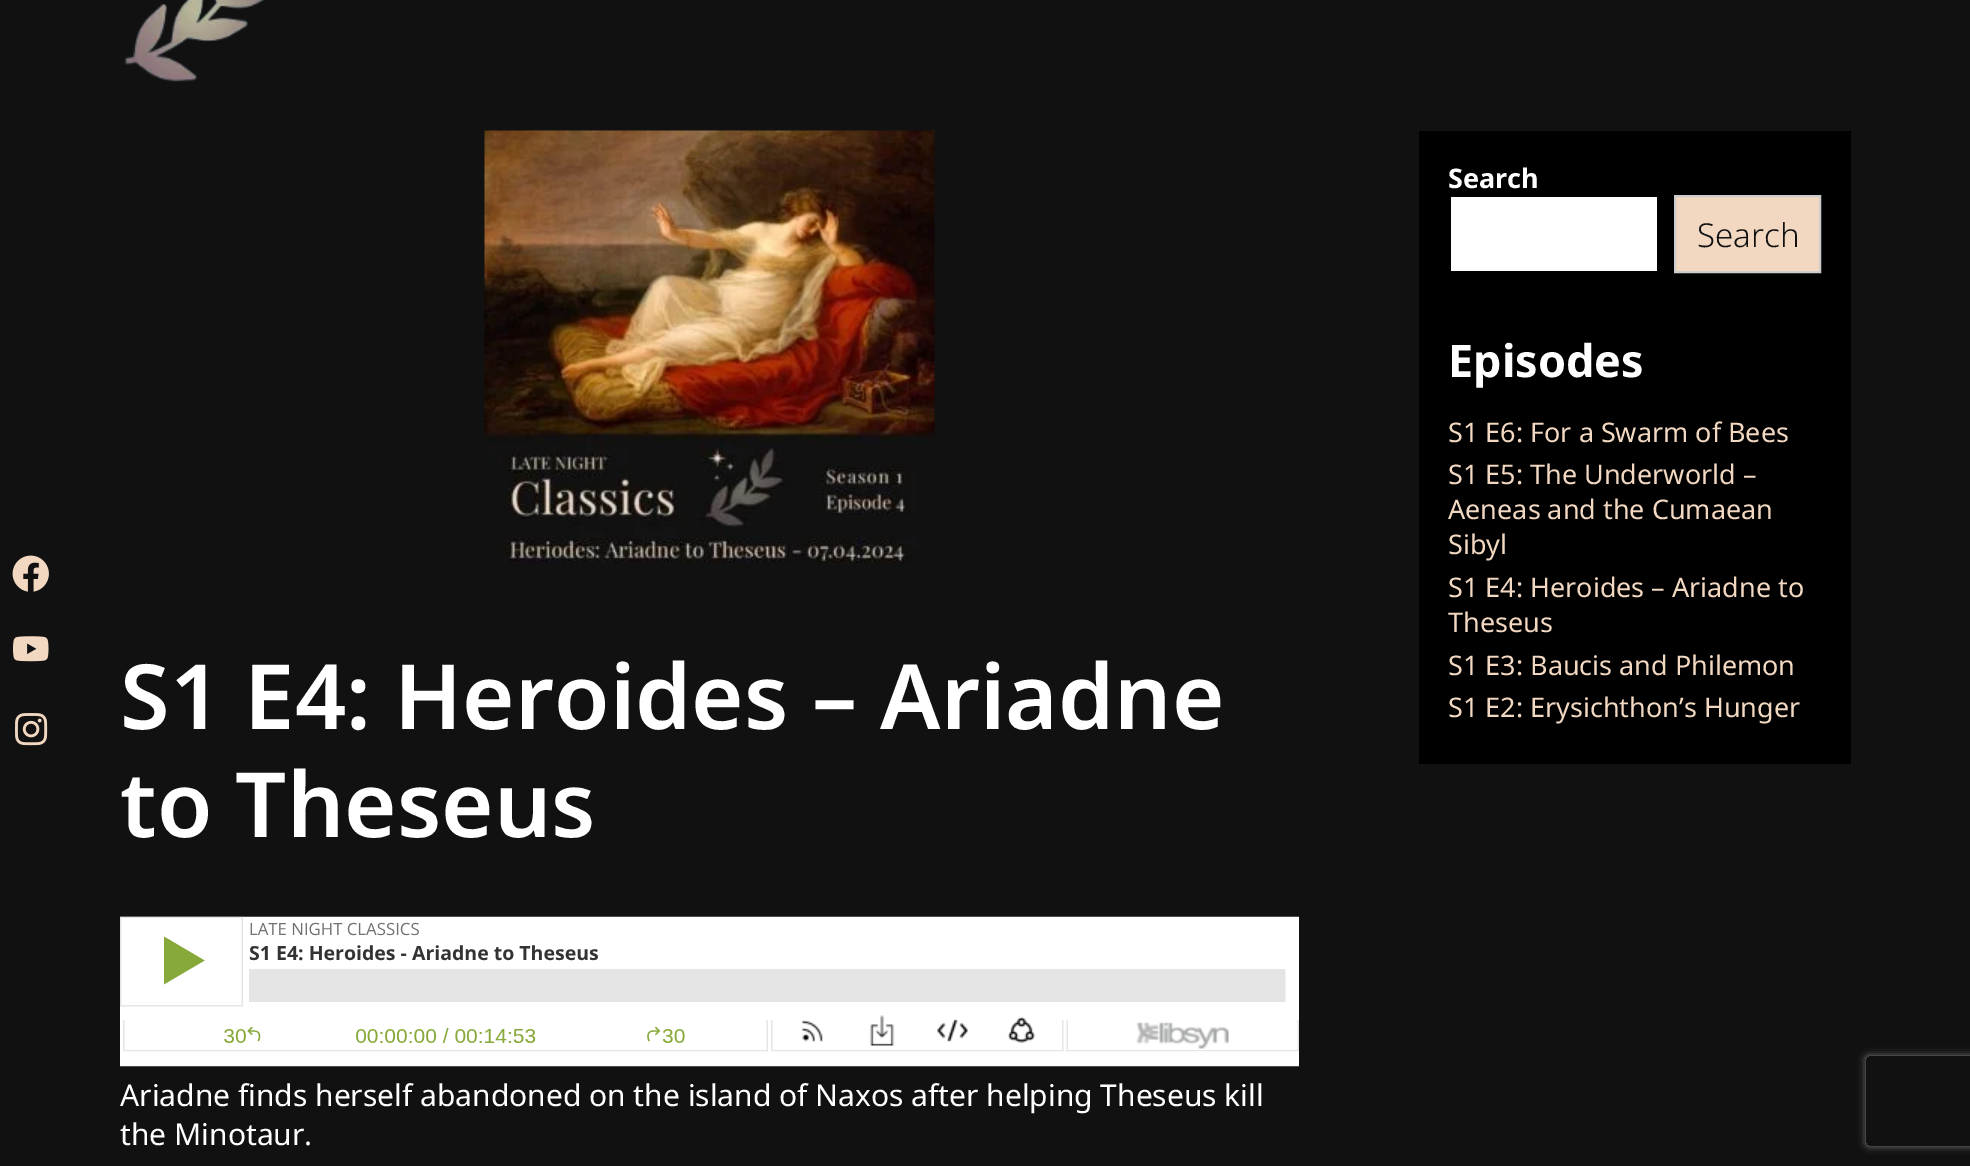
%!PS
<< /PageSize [1970 1166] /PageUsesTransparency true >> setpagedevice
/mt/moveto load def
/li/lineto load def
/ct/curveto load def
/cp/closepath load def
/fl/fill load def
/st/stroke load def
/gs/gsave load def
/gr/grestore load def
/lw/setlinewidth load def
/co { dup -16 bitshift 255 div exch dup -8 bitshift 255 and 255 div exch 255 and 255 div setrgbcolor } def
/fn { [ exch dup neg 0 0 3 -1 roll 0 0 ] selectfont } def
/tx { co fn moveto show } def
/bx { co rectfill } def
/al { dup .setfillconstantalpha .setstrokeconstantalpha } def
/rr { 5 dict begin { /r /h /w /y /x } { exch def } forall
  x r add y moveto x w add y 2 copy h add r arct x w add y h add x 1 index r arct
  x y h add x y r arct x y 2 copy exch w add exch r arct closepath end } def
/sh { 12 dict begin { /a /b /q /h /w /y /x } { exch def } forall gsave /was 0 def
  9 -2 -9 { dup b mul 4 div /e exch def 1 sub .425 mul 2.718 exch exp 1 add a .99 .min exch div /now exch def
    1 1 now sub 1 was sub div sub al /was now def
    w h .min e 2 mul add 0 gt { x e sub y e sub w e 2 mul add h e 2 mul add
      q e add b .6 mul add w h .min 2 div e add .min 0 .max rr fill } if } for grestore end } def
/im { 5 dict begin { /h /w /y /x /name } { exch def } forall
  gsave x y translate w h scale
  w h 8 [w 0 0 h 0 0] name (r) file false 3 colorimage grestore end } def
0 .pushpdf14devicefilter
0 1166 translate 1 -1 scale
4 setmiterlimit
0 0 1970 1166 16#111111 bx
(media/1.raw) 124 0 141 82 im
(media/2.raw) 12 555 37 37 im
(media/3.raw) 13 636 36 26 im
(media/4.raw) 15 713 33 33 im
1419 131 432 633 16#000000 bx
1451 197 206 74 16#FFFFFF bx
16#F2D8C1 co
1675 196 mt 1820 196 li 1820 272 li 1675 272 li cp gs fl gr
16#CCCCCC co
2 lw
st
(media/5.raw) 484 130 451 433 im
(media/6.raw) 120 916 1179 151 im
gs
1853 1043 mt 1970 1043 li 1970 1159 li 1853 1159 li cp 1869 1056 mt 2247 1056 li 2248.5 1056 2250 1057.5 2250 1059 ct 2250 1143 li 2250 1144.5 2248.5 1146 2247 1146 ct 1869 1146 li 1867.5 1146 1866 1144.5 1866 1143 ct 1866 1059 li 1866 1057.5 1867.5 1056 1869 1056 ct cp eoclip newpath
16#808080 co
1866 1056 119 90 3 4 1 sh
gr
(Search) 1448 188 /NotoSans-Bold 27 16#FFFFFF tx
(Search) 1697 247 /NotoSans-Light 33 16#111111 tx
(Episodes) 1448 377 /NotoSans-Bold 45 16#FFFFFF tx
(S1 E6: For a Swarm of Bees) 1448 442 /NotoSans-Regular 27 16#F2D8C1 tx
(S1 E5: The Underworld –) 1448 484 /NotoSans-Regular 27 16#F2D8C1 tx
(Aeneas and the Cumaean) 1448 519 /NotoSans-Regular 27 16#F2D8C1 tx
(Sibyl) 1448 554 /NotoSans-Regular 27 16#F2D8C1 tx
(S1 E4: Heroides – Ariadne to) 1448 597 /NotoSans-Regular 27 16#F2D8C1 tx
(Theseus) 1448 632 /NotoSans-Regular 27 16#F2D8C1 tx
(S1 E3: Baucis and Philemon) 1448 675 /NotoSans-Regular 27 16#F2D8C1 tx
(S1 E2: Erysichthon’s Hunger) 1448 717 /NotoSans-Regular 27 16#F2D8C1 tx
(S1 E4: Heroides – Ariadne) 120 729 /NotoSans-SemiBold 90 16#FFFFFF tx
(to Theseus) 120 837 /NotoSans-SemiBold 90 16#FFFFFF tx
(Ariadne finds herself abandoned on the island of Naxos after helping Theseus kill) 120 1106 /NotoSans-Regular 30 16#FFFFFF tx
(the Minotaur.) 120 1145 /NotoSans-Regular 30 16#FFFFFF tx
.poppdf14devicefilter showpage
